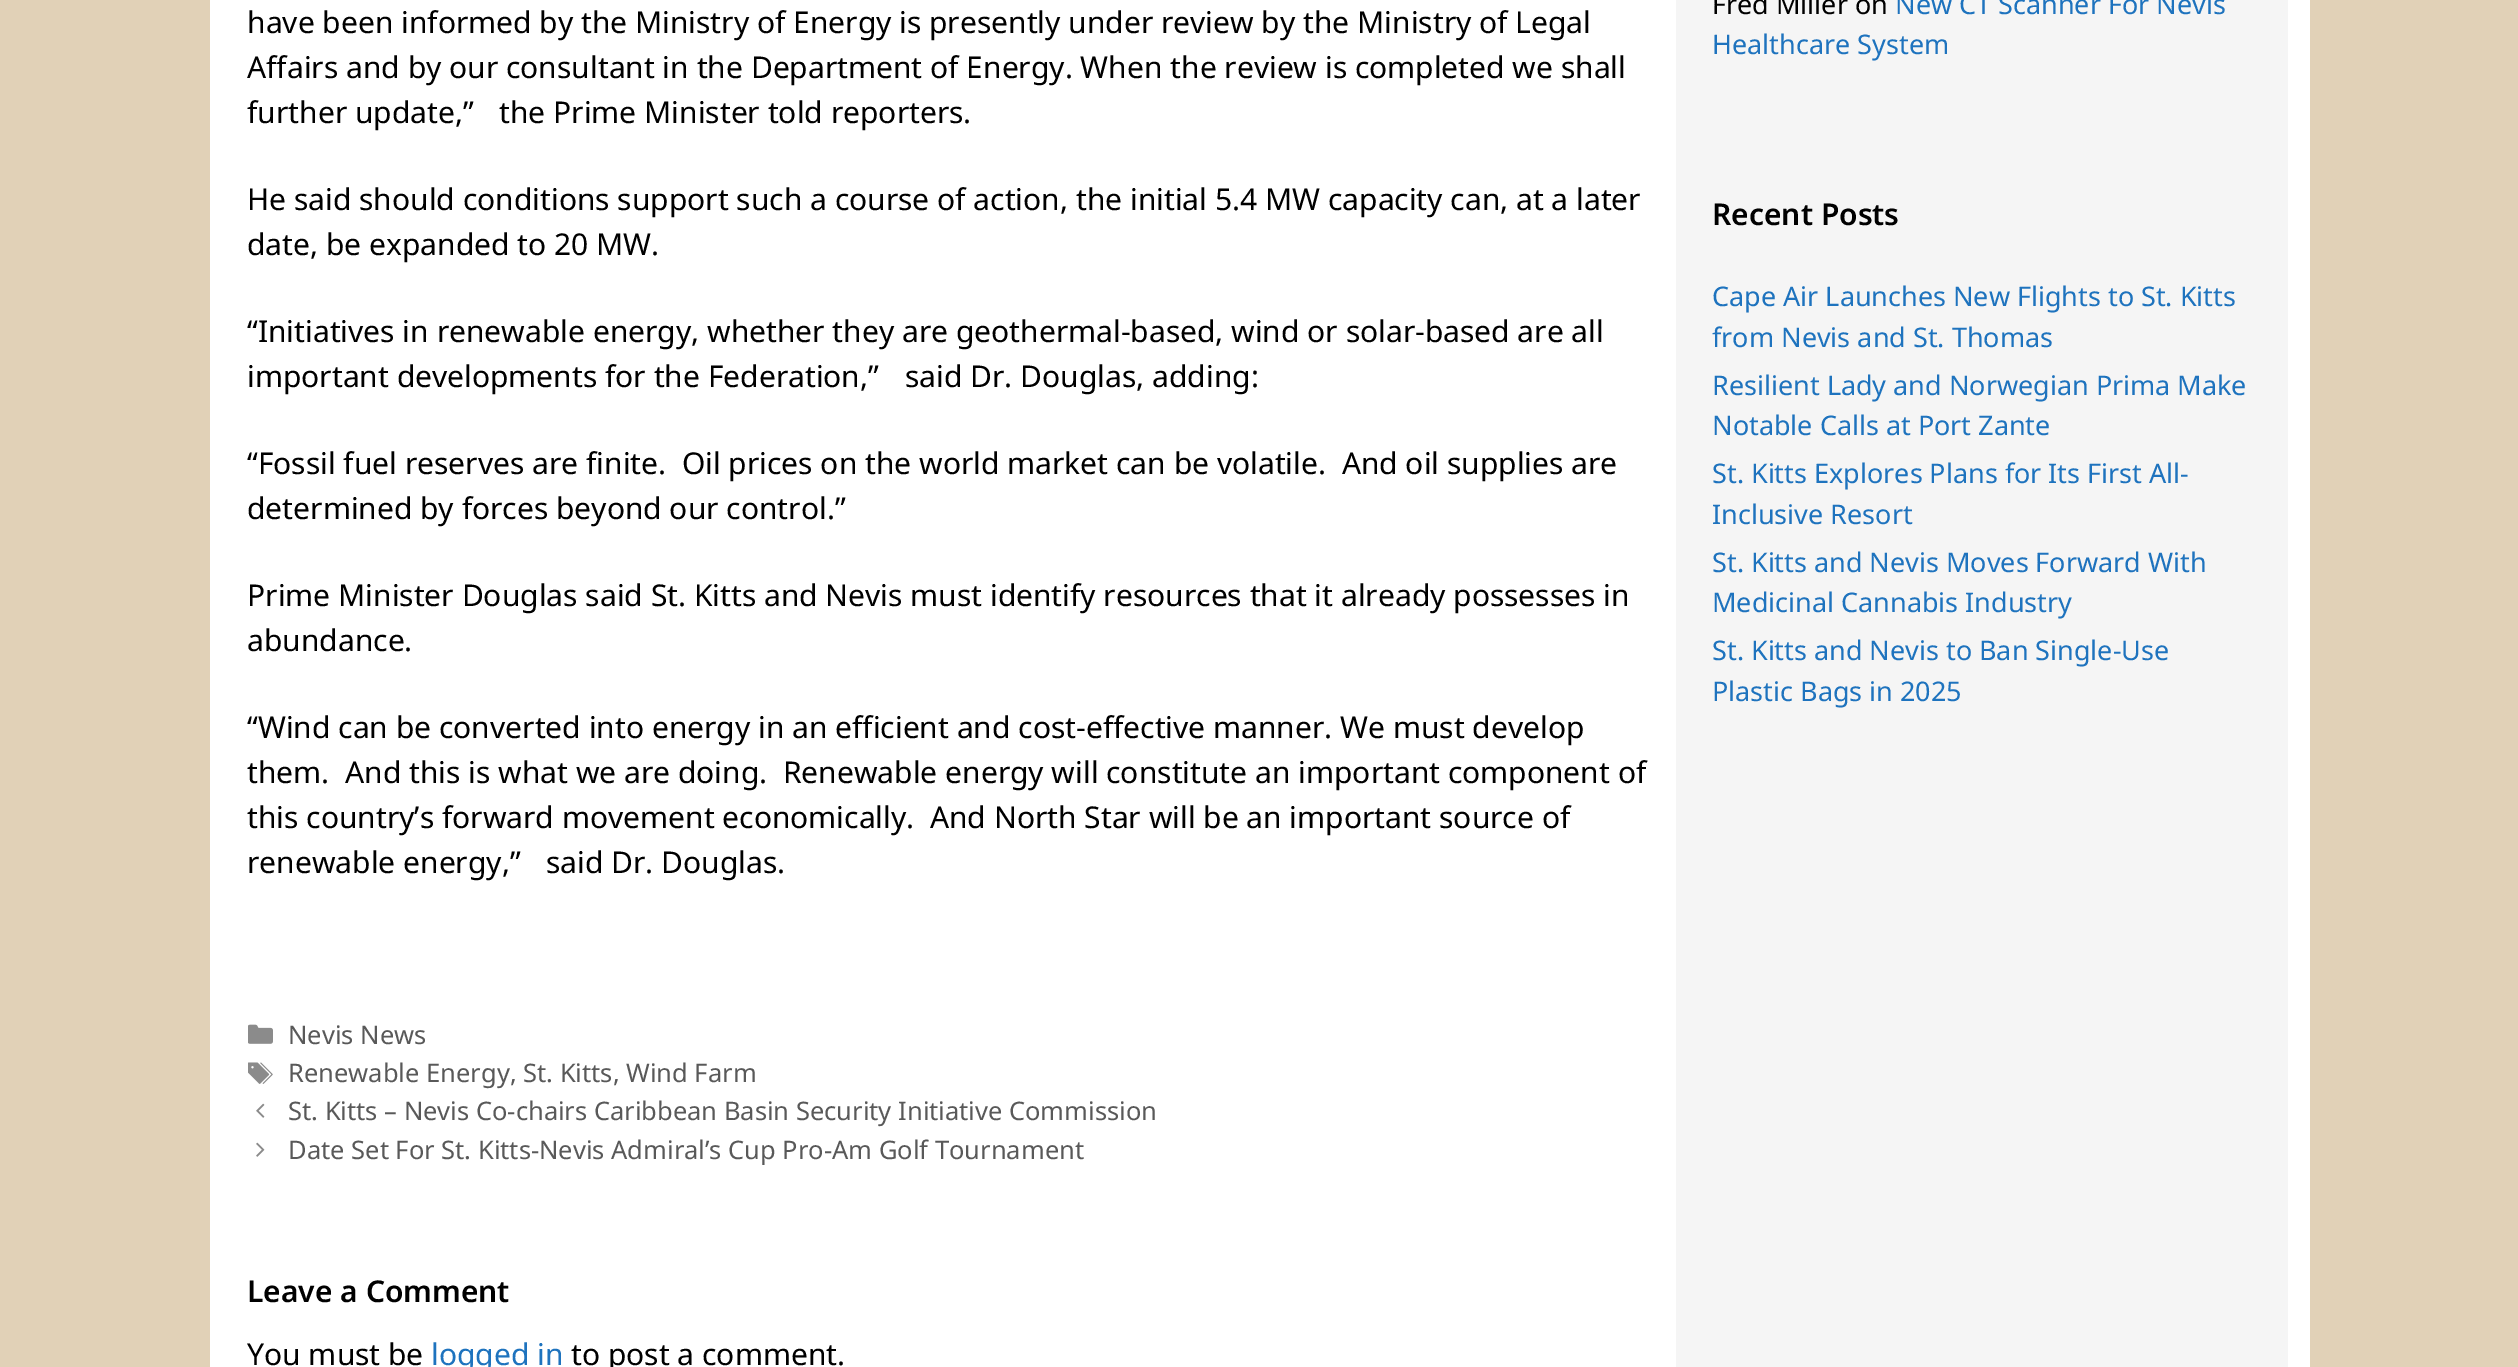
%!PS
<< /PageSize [2518 1367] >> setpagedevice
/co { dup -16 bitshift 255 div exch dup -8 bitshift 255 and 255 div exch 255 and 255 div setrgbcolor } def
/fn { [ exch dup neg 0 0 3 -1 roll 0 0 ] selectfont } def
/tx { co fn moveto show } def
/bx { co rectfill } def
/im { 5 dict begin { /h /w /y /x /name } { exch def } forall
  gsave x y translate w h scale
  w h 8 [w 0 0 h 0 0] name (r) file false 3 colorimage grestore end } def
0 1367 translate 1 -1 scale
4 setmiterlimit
0 0 2518 1367 16#E1D1B7 bx
210 0 2100 1367 16#FFFFFF bx
(media/1.raw) 248 1024 25 20 im
(media/2.raw) 248 1062 25 22 im
(media/3.raw) 256 1103 9 15 im
(media/4.raw) 256 1142 9 15 im
1676 0 612 1367 16#F5F5F5 bx
(have been informed by the Ministry of Energy is presently under review by the Ministry of Legal) 247 33 /NotoSans-Regular 30 16#000000 tx
(Affairs and by our consultant in the Department of Energy. When the review is completed we shall) 247 78 /NotoSans-Regular 30 16#000000 tx
(further update,”) 247 123 /NotoSans-Regular 30 16#000000 tx
(the Prime Minister told reporters.) 499 123 /NotoSans-Regular 30 16#000000 tx
(He said should conditions support such a course of action, the initial 5.4 MW capacity can, at a later) 247 210 /NotoSans-Regular 30 16#000000 tx
(date, be expanded to 20 MW.) 247 255 /NotoSans-Regular 30 16#000000 tx
(“Initiatives in renewable energy, whether they are geothermal-based, wind or solar-based are all) 247 342 /NotoSans-Regular 30 16#000000 tx
(important developments for the Federation,”) 247 387 /NotoSans-Regular 30 16#000000 tx
(said Dr. Douglas, adding:) 905 387 /NotoSans-Regular 30 16#000000 tx
(“Fossil fuel reserves are finite.  Oil prices on the world market can be volatile.  And oil supplies are) 247 474 /NotoSans-Regular 30 16#000000 tx
(determined by forces beyond our control.”) 247 519 /NotoSans-Regular 30 16#000000 tx
(Prime Minister Douglas said St. Kitts and Nevis must identify resources that it already possesses in) 247 606 /NotoSans-Regular 30 16#000000 tx
(abundance.) 247 651 /NotoSans-Regular 30 16#000000 tx
(“Wind can be converted into energy in an efficient and cost-effective manner. We must develop) 247 738 /NotoSans-Regular 30 16#000000 tx
(them.  And this is what we are doing.  Renewable energy will constitute an important component of) 247 783 /NotoSans-Regular 30 16#000000 tx
(this country’s forward movement economically.  And North Star will be an important source of) 247 828 /NotoSans-Regular 30 16#000000 tx
(renewable energy,”) 247 873 /NotoSans-Regular 30 16#000000 tx
(said Dr. Douglas.) 546 873 /NotoSans-Regular 30 16#000000 tx
(Nevis News) 288 1044 /NotoSans-Regular 25.5 16#595959 tx
(Renewable Energy, St. Kitts, Wind Farm) 288 1082 /NotoSans-Regular 25.5 16#595959 tx
(St. Kitts – Nevis Co-chairs Caribbean Basin Security Initiative Commission) 288 1120 /NotoSans-Regular 25.5 16#595959 tx
(Date Set For St. Kitts-Nevis Admiral’s Cup Pro-Am Golf Tournament) 288 1159 /NotoSans-Regular 25.5 16#595959 tx
(Leave a Comment) 247 1302 /NotoSans-SemiBold 30 16#000000 tx
(You must be) 247 1365 /NotoSans-Regular 30 16#000000 tx
(logged in) 431 1365 /NotoSans-Regular 30 16#1E73BE tx
(to post a comment.) 571 1365 /NotoSans-Regular 30 16#000000 tx
(Fred Miller on) 1712 14 /NotoSans-Regular 27 16#000000 tx
(New CT Scanner For Nevis) 1895 14 /NotoSans-Regular 27 16#1E73BE tx
(Healthcare System) 1712 54 /NotoSans-Regular 27 16#1E73BE tx
(Recent Posts) 1712 225 /NotoSans-SemiBold 30 16#000000 tx
(Cape Air Launches New Flights to St. Kitts) 1712 306 /NotoSans-Regular 27 16#1E73BE tx
(from Nevis and St. Thomas) 1712 347 /NotoSans-Regular 27 16#1E73BE tx
(Resilient Lady and Norwegian Prima Make) 1712 395 /NotoSans-Regular 27 16#1E73BE tx
(Notable Calls at Port Zante) 1712 435 /NotoSans-Regular 27 16#1E73BE tx
(St. Kitts Explores Plans for Its First All-) 1712 483 /NotoSans-Regular 27 16#1E73BE tx
(Inclusive Resort) 1712 524 /NotoSans-Regular 27 16#1E73BE tx
(St. Kitts and Nevis Moves Forward With) 1712 572 /NotoSans-Regular 27 16#1E73BE tx
(Medicinal Cannabis Industry) 1712 612 /NotoSans-Regular 27 16#1E73BE tx
(St. Kitts and Nevis to Ban Single-Use) 1712 660 /NotoSans-Regular 27 16#1E73BE tx
(Plastic Bags in 2025) 1712 701 /NotoSans-Regular 27 16#1E73BE tx
showpage
